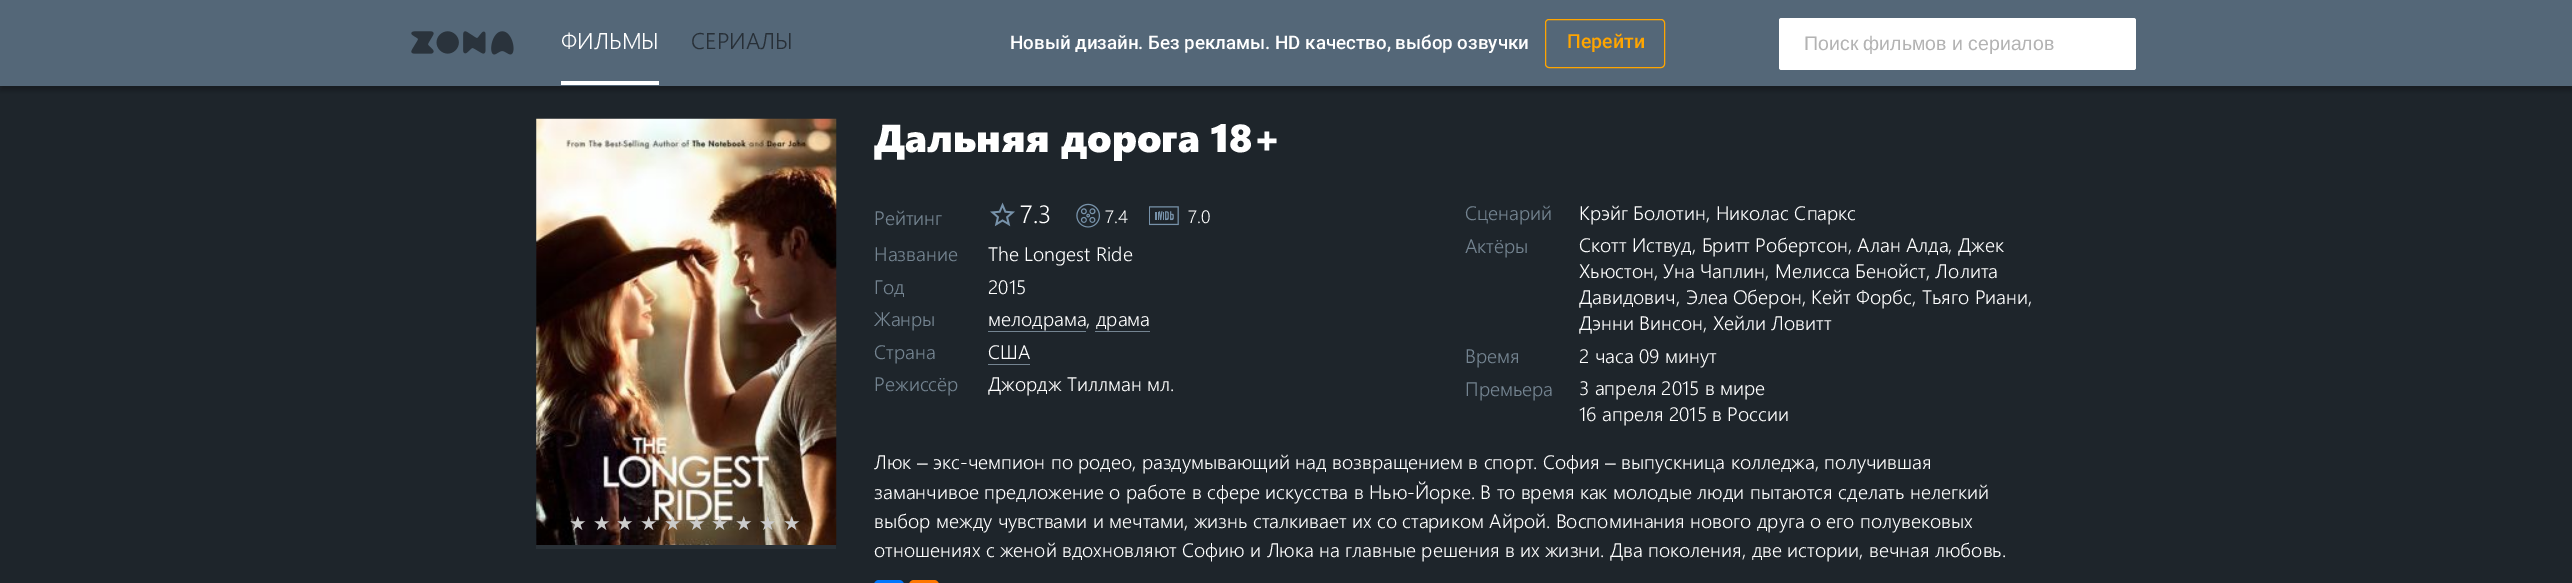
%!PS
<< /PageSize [2572 583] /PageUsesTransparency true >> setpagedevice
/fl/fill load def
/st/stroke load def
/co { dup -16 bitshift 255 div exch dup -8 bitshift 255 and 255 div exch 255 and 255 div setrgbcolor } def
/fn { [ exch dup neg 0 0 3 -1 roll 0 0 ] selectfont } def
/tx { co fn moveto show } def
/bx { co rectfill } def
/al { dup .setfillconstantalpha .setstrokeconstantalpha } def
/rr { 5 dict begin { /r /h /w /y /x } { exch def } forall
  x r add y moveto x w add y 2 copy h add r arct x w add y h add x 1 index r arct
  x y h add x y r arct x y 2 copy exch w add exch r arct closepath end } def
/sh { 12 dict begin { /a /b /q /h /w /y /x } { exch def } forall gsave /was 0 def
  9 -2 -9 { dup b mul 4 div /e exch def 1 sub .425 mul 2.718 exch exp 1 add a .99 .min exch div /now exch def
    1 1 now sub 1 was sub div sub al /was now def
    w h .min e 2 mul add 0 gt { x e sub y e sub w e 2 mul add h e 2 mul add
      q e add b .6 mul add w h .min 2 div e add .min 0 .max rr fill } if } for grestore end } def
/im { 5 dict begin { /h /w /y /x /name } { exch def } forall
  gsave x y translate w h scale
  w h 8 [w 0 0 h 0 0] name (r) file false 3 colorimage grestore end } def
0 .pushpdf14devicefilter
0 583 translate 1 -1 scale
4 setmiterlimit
0 0 2572 583 16#1E252B bx
16#000000 co
0 5 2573 86 0 2.5 .24 sh
0 0 2572 86 16#546778 bx
(media/1.raw) 411 31 103 24 im
561 81 98 4 16#FFFFFF bx
16#FFA500 co
1545.5 19.5 119 48 3.5 rr st
16#FFFFFF co
1779 18 357 52 2.5 rr fl
536 119 300 430 16#293036 bx
(media/2.raw) 536 118 301 427 im
(media/3.raw) 990 202 25 25 im
(media/4.raw) 1076 203 24 25 im
(media/5.raw) 1149 206 30 20 im
988 331 98 1 16#748491 bx
1095 331 55 1 16#748491 bx
988 364 42 1 16#748491 bx
16#0077FF co
874 580 30 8 5 rr fl
16#FF7700 co
909 580 30 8 5 rr fl
(ФИЛЬМЫ) 561 49 /SegoeUI-Light 22.75 16#FFFFFF tx
(СЕРИАЛЫ) 691 49 /SegoeUI-Light 22.75 16#272F37 tx
(Новый дизайн. Без рекламы. HD качество, выбор озвучки) 1010 49 /Roboto-Medium 18.75 16#FFFFFF tx
(Перейти) 1567 48 /Roboto-Medium 19.5 16#FFA500 tx
(Поиск фильмов и сериалов) 1804 50 /LiberationSans-Regular 19.5 16#B3B3B3 tx
(★) 569 530 /DejaVuSans-Regular 19.5 16#CCCCCC tx
(★) 593 530 /DejaVuSans-Regular 19.5 16#CCCCCC tx
(★) 616 530 /DejaVuSans-Regular 19.5 16#CCCCCC tx
(★) 640 530 /DejaVuSans-Regular 19.5 16#CCCCCC tx
(★) 664 530 /DejaVuSans-Regular 19.5 16#CCCCCC tx
(★) 688 530 /DejaVuSans-Regular 19.5 16#CCCCCC tx
(★) 711 530 /DejaVuSans-Regular 19.5 16#CCCCCC tx
(★) 735 530 /DejaVuSans-Regular 19.5 16#CCCCCC tx
(★) 759 530 /DejaVuSans-Regular 19.5 16#CCCCCC tx
(★) 783 530 /DejaVuSans-Regular 19.5 16#CCCCCC tx
(Дальняя дорога 18+) 874 152 /SegoeUI-Black 39 16#FFFFFF tx
(Рейтинг) 874 225 /SegoeUI-Light 19.5 16#748491 tx
(7.3) 1020 223 /SegoeUI-Light 25 16#FFFFFF tx
(7.4) 1105 223 /SegoeUI-Light 18 16#FFFFFF tx
(7.0) 1188 223 /SegoeUI-Light 18 16#FFFFFF tx
(Сценарий) 1465 220 /SegoeUI-Light 19.5 16#748491 tx
(Крэйг Болотин, Николас Спаркс) 1579 220 /SegoeUI-Light 19.5 16#FFFFFF tx
(Название) 874 261 /SegoeUI-Light 19.5 16#748491 tx
(The Longest Ride) 988 261 /SegoeUI-Light 19.5 16#FFFFFF tx
(Актёры) 1465 253 /SegoeUI-Light 19.5 16#748491 tx
(Скотт Иствуд, Бритт Робертсон, Алан Алда, Джек) 1579 252 /SegoeUI-Light 19.5 16#FFFFFF tx
(Хьюстон, Уна Чаплин, Мелисса Бенойст, Лолита) 1579 278 /SegoeUI-Light 19.5 16#FFFFFF tx
(Давидович, Элеа Оберон, Кейт Форбс, Тьяго Риани,) 1579 304 /SegoeUI-Light 19.5 16#FFFFFF tx
(Дэнни Винсон, Хейли Ловитт) 1579 330 /SegoeUI-Light 19.5 16#FFFFFF tx
(Год) 874 294 /SegoeUI-Light 19.5 16#748491 tx
(2015) 988 294 /SegoeUI-Light 19.5 16#FFFFFF tx
(Жанры) 874 326 /SegoeUI-Light 19.5 16#748491 tx
(мелодрама, драма) 988 326 /SegoeUI-Light 19.5 16#FFFFFF tx
(Страна) 874 359 /SegoeUI-Light 19.5 16#748491 tx
(США) 988 359 /SegoeUI-Light 19.5 16#FFFFFF tx
(Время) 1465 363 /SegoeUI-Light 19.5 16#748491 tx
(2 часа 09 минут) 1579 363 /SegoeUI-Light 19.5 16#FFFFFF tx
(Режиссёр) 874 391 /SegoeUI-Light 19.5 16#748491 tx
(Джордж Тиллман мл.) 988 391 /SegoeUI-Light 19.5 16#FFFFFF tx
(Премьера) 1465 396 /SegoeUI-Light 19.5 16#748491 tx
(3 апреля 2015 в мире) 1579 395 /SegoeUI-Light 19.5 16#FFFFFF tx
(16 апреля 2015 в России) 1579 421 /SegoeUI-Light 19.5 16#FFFFFF tx
(Люк) 874 469 /SegoeUI-Light 19.5 16#FFFFFF tx
(–) 917 469 /LiberationSans-Regular 19.5 16#FFFFFF tx
(экс-чемпион по родео, раздумывающий над возвращением в спорт. София) 933 469 /SegoeUI-Light 19.5 16#FFFFFF tx
(–) 1605 469 /LiberationSans-Regular 19.5 16#FFFFFF tx
(выпускница колледжа, получившая) 1621 469 /SegoeUI-Light 19.5 16#FFFFFF tx
(заманчивое предложение о работе в сфере искусства в Нью-Йорке. В то время как молодые люди пытаются сделать нелегкий) 874 499 /SegoeUI-Light 19.5 16#FFFFFF tx
(выбор между чувствами и мечтами, жизнь сталкивает их со стариком Айрой. Воспоминания нового друга о его полувековых) 874 528 /SegoeUI-Light 19.5 16#FFFFFF tx
(отношениях с женой вдохновляют Софию и Люка на главные решения в их жизни. Два поколения, две истории, вечная любовь.) 874 557 /SegoeUI-Light 19.5 16#FFFFFF tx
.poppdf14devicefilter showpage
